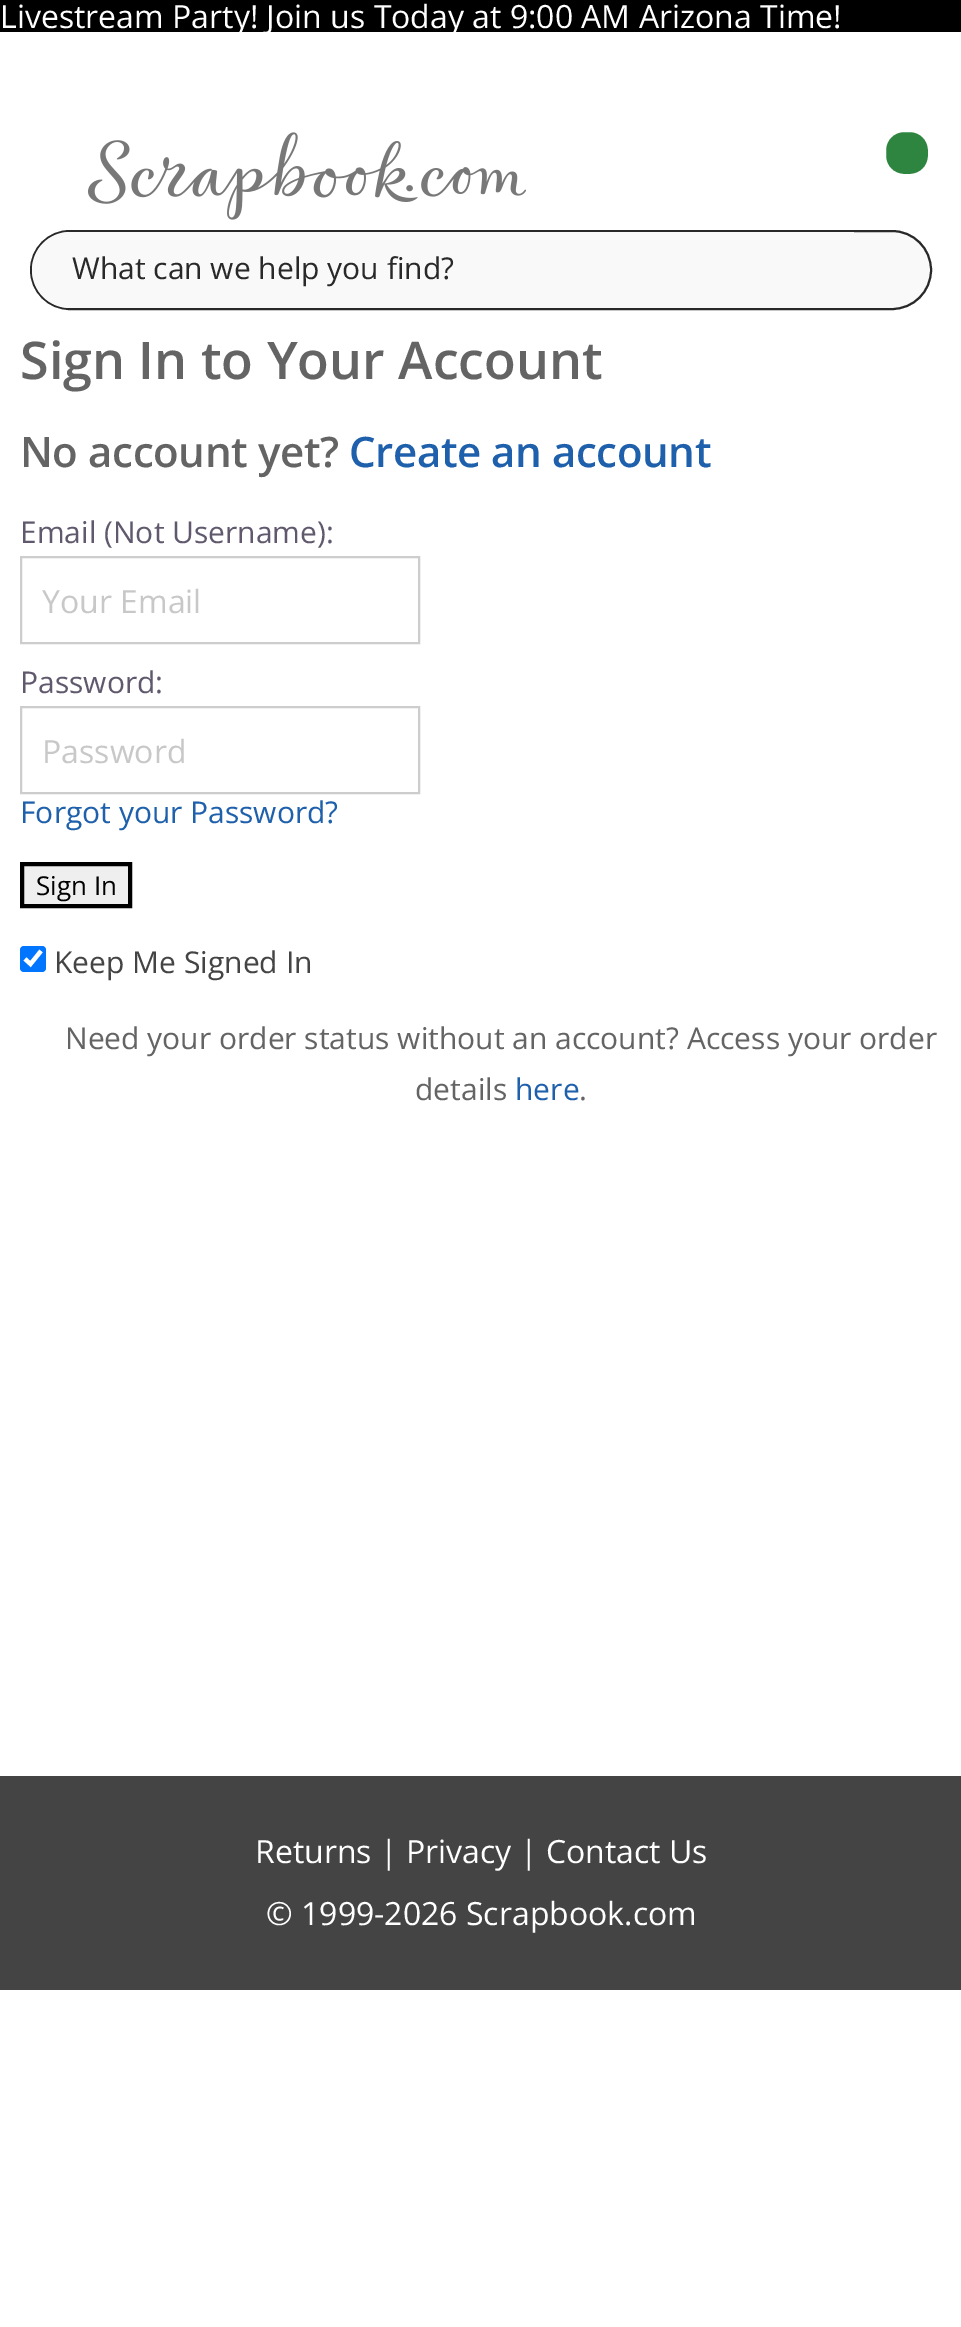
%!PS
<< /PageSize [961 2327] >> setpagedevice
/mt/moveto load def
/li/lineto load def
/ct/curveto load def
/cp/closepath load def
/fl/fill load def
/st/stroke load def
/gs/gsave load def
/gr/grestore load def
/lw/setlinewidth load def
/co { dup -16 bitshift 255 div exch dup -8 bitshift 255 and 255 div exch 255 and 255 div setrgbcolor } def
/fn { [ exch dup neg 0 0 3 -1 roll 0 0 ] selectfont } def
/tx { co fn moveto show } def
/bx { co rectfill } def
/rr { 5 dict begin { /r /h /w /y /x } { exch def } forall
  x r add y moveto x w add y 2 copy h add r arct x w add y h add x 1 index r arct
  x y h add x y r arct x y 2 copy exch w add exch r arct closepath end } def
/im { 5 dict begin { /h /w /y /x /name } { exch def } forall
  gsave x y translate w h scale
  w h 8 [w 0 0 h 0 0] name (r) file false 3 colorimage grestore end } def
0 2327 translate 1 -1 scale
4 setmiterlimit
0 0 961 2327 16#FFFFFF bx
0 0 961 32 16#000000 bx
(media/1.raw) 88 132 438 88 im
16#2E853F co
884 130 46 46 20 rr gs fl gr
16#FFFFFF co
4 lw
st
16#F9F9F9 co
31 231 900 78 39 rr gs fl gr
16#292929 co
2 lw
st
16#F9F9F9 co
70 232 mt 854 232 li 854 308 li 70 308 li 49 308 32 291 32 270 ct 32 249 49 232 70 232 ct cp fl
16#CDCDCD co
21 557 398 86 rectstroke
21 707 398 86 rectstroke
16#EFEFEF co
22 864 mt 130 864 li 130 906 li 22 906 li cp gs fl gr
16#000000 co
4 lw
st
16#0075FF co
20 946 26 26 4 rr fl
16#FFFFFF co
4.2 lw
25 959 mt 30.5 964 li 41 951 li st
0 1776 961 214 16#444444 bx
(Livestream Party! Join us Today at 9:00 AM Arizona Time!) 0 28 /OpenSans-Regular 32 16#FFFFFF tx
(What can we help you find?) 72 279 /OpenSans-Regular 30 16#292929 tx
(Sign In to Your Account) 20 379 /OpenSans-SemiBold 52 16#646464 tx
/OpenSans-SemiBold 42 fn
20 467 mt -.4 0 (No account yet?) ashow
16#1E60AB co
349 467 mt -.4 0 (Create an account) ashow
(Email \(Not Username\):) 20 543 /OpenSans-Regular 30 16#60596D tx
(Your Email) 42 613 /OpenSans-Regular 32 16#C8C8C8 tx
(Password:) 20 693 /OpenSans-Regular 30 16#60596D tx
(Password) 42 763 /OpenSans-Regular 32 16#C8C8C8 tx
(Forgot your Password?) 20 823 /OpenSans-Regular 30 16#1E60AB tx
(Sign In) 36 895 /OpenSans-Regular 26 16#000000 tx
(Keep Me Signed In) 54 973 /OpenSans-Regular 30 16#444444 tx
(Need your order status without an account? Access your order) 65 1049 /OpenSans-Regular 30 16#646464 tx
(details) 415 1100 /OpenSans-Regular 30 16#646464 tx
(here) 515 1100 /OpenSans-Regular 30 16#1E60AB tx
(.) 579 1100 /OpenSans-Regular 30 16#646464 tx
(Returns | Privacy | Contact Us) 255 1863 /OpenSans-Regular 32 16#FFFFFF tx
(© 1999-2026 Scrapbook.com) 266 1925 /OpenSans-Regular 32 16#FFFFFF tx
showpage
